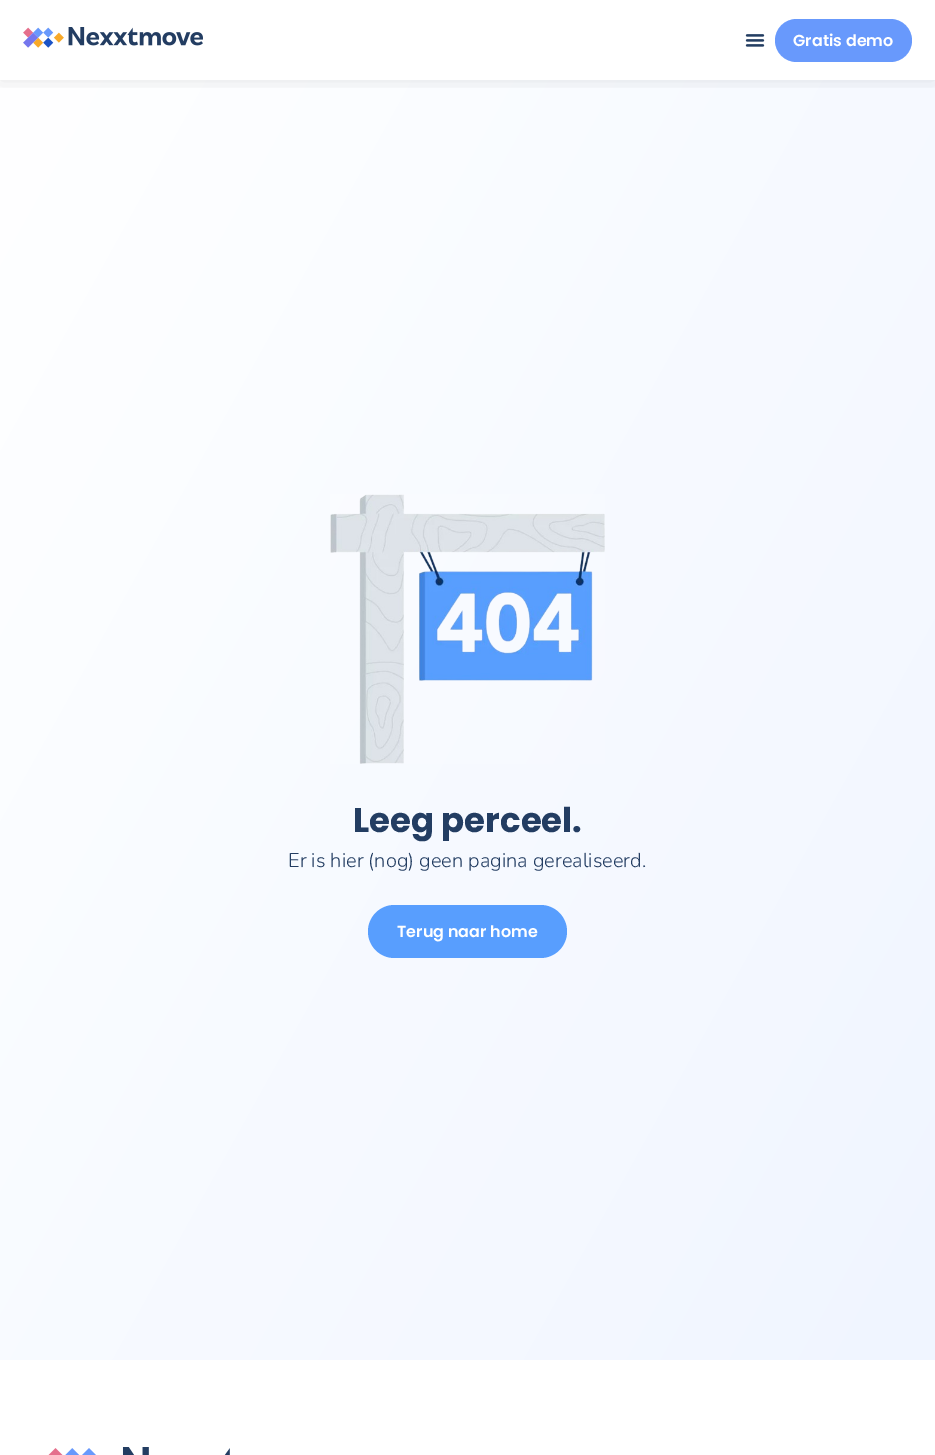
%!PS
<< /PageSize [935 1455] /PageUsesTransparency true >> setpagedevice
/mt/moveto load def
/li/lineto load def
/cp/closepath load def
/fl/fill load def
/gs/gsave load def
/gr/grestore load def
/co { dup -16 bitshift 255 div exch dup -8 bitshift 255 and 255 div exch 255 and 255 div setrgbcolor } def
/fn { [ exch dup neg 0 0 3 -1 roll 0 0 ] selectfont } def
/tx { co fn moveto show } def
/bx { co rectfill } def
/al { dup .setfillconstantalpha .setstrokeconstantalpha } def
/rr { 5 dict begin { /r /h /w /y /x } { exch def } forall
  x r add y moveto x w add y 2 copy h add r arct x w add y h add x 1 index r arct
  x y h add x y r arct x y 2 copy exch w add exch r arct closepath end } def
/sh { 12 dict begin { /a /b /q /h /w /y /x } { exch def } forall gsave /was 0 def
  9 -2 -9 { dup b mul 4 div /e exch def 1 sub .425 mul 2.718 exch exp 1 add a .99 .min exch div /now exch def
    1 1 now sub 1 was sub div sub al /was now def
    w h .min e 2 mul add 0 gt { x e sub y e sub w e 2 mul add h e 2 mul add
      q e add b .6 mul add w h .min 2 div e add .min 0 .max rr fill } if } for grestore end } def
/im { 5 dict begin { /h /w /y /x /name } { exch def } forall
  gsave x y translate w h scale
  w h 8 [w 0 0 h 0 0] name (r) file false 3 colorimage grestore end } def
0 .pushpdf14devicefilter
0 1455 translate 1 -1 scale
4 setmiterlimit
0 0 935 1455 16#FFFFFF bx
gs 0 80 mt 935 80 li 935 1360 li 0 1360 li cp clip newpath
<< /ShadingType 2 /ColorSpace /DeviceRGB /Coords [-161 371 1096 1069] /Extend [true true] /Function << /FunctionType 2 /Domain [0 1] /C0 [1 1 1] /C1 [.941 .961 1] /N 1 >> >> shfill gr
gs
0 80 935 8 rectclip
16#000000 co
0 0 935 80 0 10 .1 sh
gr
(media/1.raw) 23 27 180 21 im
(media/2.raw) 745 34 20 13 im
16#6899FC co
775 19 137 43 21.5 rr fl
(media/3.raw) 330 494 275 270 im
16#589EFE co
368 905 199 53 26.5 rr fl
(media/4.raw) 48 1447 182 8 im
(Gratis demo) 793 46 /Poppins-SemiBold 16 16#FFFFFF tx
(Leeg perceel.) 353 832 /Poppins-Bold 34 16#233D62 tx
(Er is hier \(nog\) geen pagina gerealiseerd.) 288 867 /Nunito-Light 20 16#233D62 tx
(Terug naar home) 397 937 /Poppins-SemiBold 16 16#FFFFFF tx
.poppdf14devicefilter showpage
